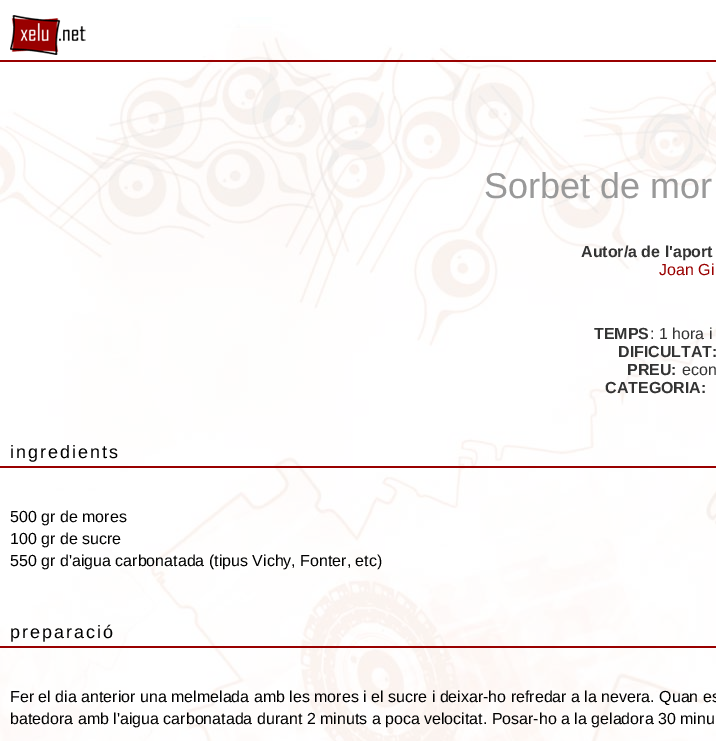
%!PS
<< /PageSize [716 741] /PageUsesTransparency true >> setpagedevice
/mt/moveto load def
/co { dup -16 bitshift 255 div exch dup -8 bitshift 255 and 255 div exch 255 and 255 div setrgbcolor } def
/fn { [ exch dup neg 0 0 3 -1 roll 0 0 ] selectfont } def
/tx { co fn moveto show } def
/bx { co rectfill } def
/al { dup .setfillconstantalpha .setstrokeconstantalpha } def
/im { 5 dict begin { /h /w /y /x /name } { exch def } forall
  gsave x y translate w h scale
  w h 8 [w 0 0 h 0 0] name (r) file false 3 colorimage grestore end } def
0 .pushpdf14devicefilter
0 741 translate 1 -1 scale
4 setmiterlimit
0 0 716 741 16#FFFFFF bx
(media/1.raw) 0 17 716 724 im
0.75 al
208 28 256 32 16#FFFFFF bx
1 al
(media/2.raw) 10 15 76 40 im
0 60 716 2 16#990000 bx
0 466 716 2 16#990000 bx
0 646 716 2 16#990000 bx
(Sorbet de mor) 484 198 /LiberationSans-Regular 36 16#999999 tx
(Autor/a de l'aport) 581 257 /LiberationSans-Bold 16 16#333333 tx
(Joan Gi) 659 275 /LiberationSans-Regular 16 16#990000 tx
(TEMPS) 594 339 /LiberationSans-Bold 16 16#333333 tx
(: 1 hora i) 650 339 /LiberationSans-Regular 16 16#333333 tx
(DIFICULTAT:) 618 357 /LiberationSans-Bold 16 16#333333 tx
(PREU:) 627 375 /LiberationSans-Bold 16 16#333333 tx
(econ) 682 375 /LiberationSans-Regular 16 16#333333 tx
(CATEGORIA:) 605 393 /LiberationSans-Bold 16 16#333333 tx
/LiberationSans-Regular 18 fn
16#000000 co
10 458 mt 2 0 (ingredients) ashow
(500 gr de mores) 10 522 /LiberationSans-Regular 16 16#000000 tx
(100 gr de sucre) 10 544 /LiberationSans-Regular 16 16#000000 tx
(550 gr d'aigua carbonatada \(tipus Vichy, Fonter, etc\)) 10 566 /LiberationSans-Regular 16 16#000000 tx
/LiberationSans-Regular 18 fn
10 638 mt 2 0 (preparació) ashow
(Fer el dia anterior una melmelada amb les mores i el sucre i deixar-ho refredar a la nevera. Quan es) 10 702 /LiberationSans-Regular 16 16#000000 tx
(batedora amb l'aigua carbonatada durant 2 minuts a poca velocitat. Posar-ho a la geladora 30 minu) 10 724 /LiberationSans-Regular 16 16#000000 tx
.poppdf14devicefilter showpage
